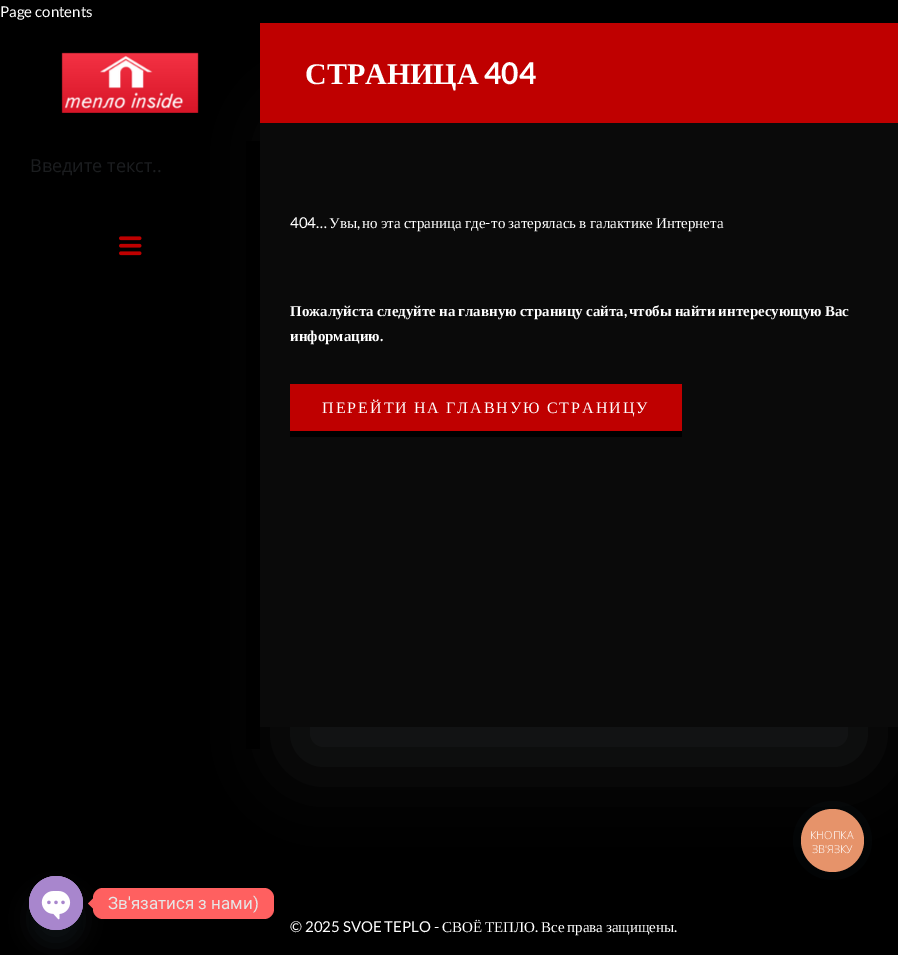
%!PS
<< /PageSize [898 955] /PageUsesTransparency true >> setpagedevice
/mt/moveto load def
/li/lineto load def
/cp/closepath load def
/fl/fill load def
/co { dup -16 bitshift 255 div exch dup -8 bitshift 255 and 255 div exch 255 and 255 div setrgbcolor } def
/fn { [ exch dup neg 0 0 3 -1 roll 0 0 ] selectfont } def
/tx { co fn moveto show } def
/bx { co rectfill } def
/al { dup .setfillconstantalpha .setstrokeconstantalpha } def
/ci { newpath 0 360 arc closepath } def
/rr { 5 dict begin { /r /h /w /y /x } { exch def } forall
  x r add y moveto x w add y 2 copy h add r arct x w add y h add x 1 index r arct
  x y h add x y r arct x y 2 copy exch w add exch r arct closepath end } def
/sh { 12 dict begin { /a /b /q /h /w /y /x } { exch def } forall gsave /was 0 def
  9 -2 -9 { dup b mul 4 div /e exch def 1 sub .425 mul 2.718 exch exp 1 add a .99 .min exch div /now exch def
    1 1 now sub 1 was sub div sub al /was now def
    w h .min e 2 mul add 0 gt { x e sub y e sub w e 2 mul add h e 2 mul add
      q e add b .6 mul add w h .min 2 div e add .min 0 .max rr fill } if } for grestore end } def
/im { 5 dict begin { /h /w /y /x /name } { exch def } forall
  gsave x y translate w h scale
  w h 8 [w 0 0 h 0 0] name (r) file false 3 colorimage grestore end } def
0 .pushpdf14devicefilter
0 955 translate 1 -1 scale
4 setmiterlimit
0 0 898 955 16#000000 bx
16#1A1C1D co
300 133 558 624 0 40 1 sh
246 141 14 608 16#000000 bx
(media/1.raw) 61 52 138 61 im
(media/2.raw) 119 236 23 20 im
260 123 638 604 16#0A0A0A bx
260 23 638 100 16#BF0000 bx
290 431 392 6 16#000000 bx
290 384 392 47 16#BF0000 bx
0.06 al
16#2A405D co
832.5 840.5 39.5 ci fl
1 al
16#E6936A co
832.5 840.5 31.5 ci fl
16#FF6060 co
93 888 181 31 10 rr fl
93 898.5 mt 93 908.5 li 88 903.5 li cp fl
16#49687E co
29 892 54 54 27 12 .16 sh
(media/3.raw) 29 876 54 54 im
(Page contents) 0 17 /Lato-Regular 15 16#FFFFFF tx
(Введите текст..) 30 172 /OpenSans-Regular 18 16#1B1D1F tx
(СТРАНИЦА) 305 84 /LiberationSerif-Bold 30 16#FFFFFF tx
(404) 484 84 /Lato-Bold 30 16#FFFFFF tx
(404…) 290 228 /Lato-Regular 15 16#FFFFFF tx
(Увы) 329 228 /LiberationSerif-Regular 15 16#FFFFFF tx
362 228 mt -.5 0 32 (но эта страница где) widthshow
(-) 485 228 /Lato-Regular 15 16#FFFFFF tx
/LiberationSerif-Regular 15 fn
491 228 mt -.5 0 32 (то затерялась в галактике Интернета) widthshow
(,) 357 228 /Lato-Regular 15 16#FFFFFF tx
/LiberationSerif-Bold 15 fn
290 316 mt -.75 0 32 (Пожалуйста следуйте на главную страницу сайта) widthshow
(,) 624 316 /Lato-Bold 15 16#FFFFFF tx
/LiberationSerif-Bold 15 fn
629 316 mt -.75 0 32 (чтобы найти интересующую Вас) widthshow
(информацию) 290 341 /LiberationSerif-Bold 15 16#FFFFFF tx
(.) 380 341 /Lato-Bold 15 16#FFFFFF tx
/LiberationSerif-Regular 16 fn
322 413 mt -1 0 32 2 0 (ПЕРЕЙТИ НА ГЛАВНУЮ СТРАНИЦУ) awidthshow
(© 2025 SVOE TEPLO -) 290 932 /Lato-Regular 15 16#FFFFFF tx
(СВОЁ) 442 932 /LiberationSerif-Regular 15 16#FFFFFF tx
(ТЕПЛО) 485 932 /LiberationSerif-Regular 15 16#FFFFFF tx
(.) 535 932 /Lato-Regular 15 16#FFFFFF tx
/LiberationSerif-Regular 15 fn
541 932 mt -1 0 32 (Все права защищены) widthshow
(.) 674 932 /Lato-Regular 15 16#FFFFFF tx
(КНОПКА) 810 839 /OpenSans-Light 11 16#FFFFFF tx
(ЗВ'ЯЗКУ) 812 853 /OpenSans-Light 11 16#FFFFFF tx
(Зв'язатися з нами\)) 108 909 /Roboto-Regular 17 16#E6E6E6 tx
.poppdf14devicefilter showpage
